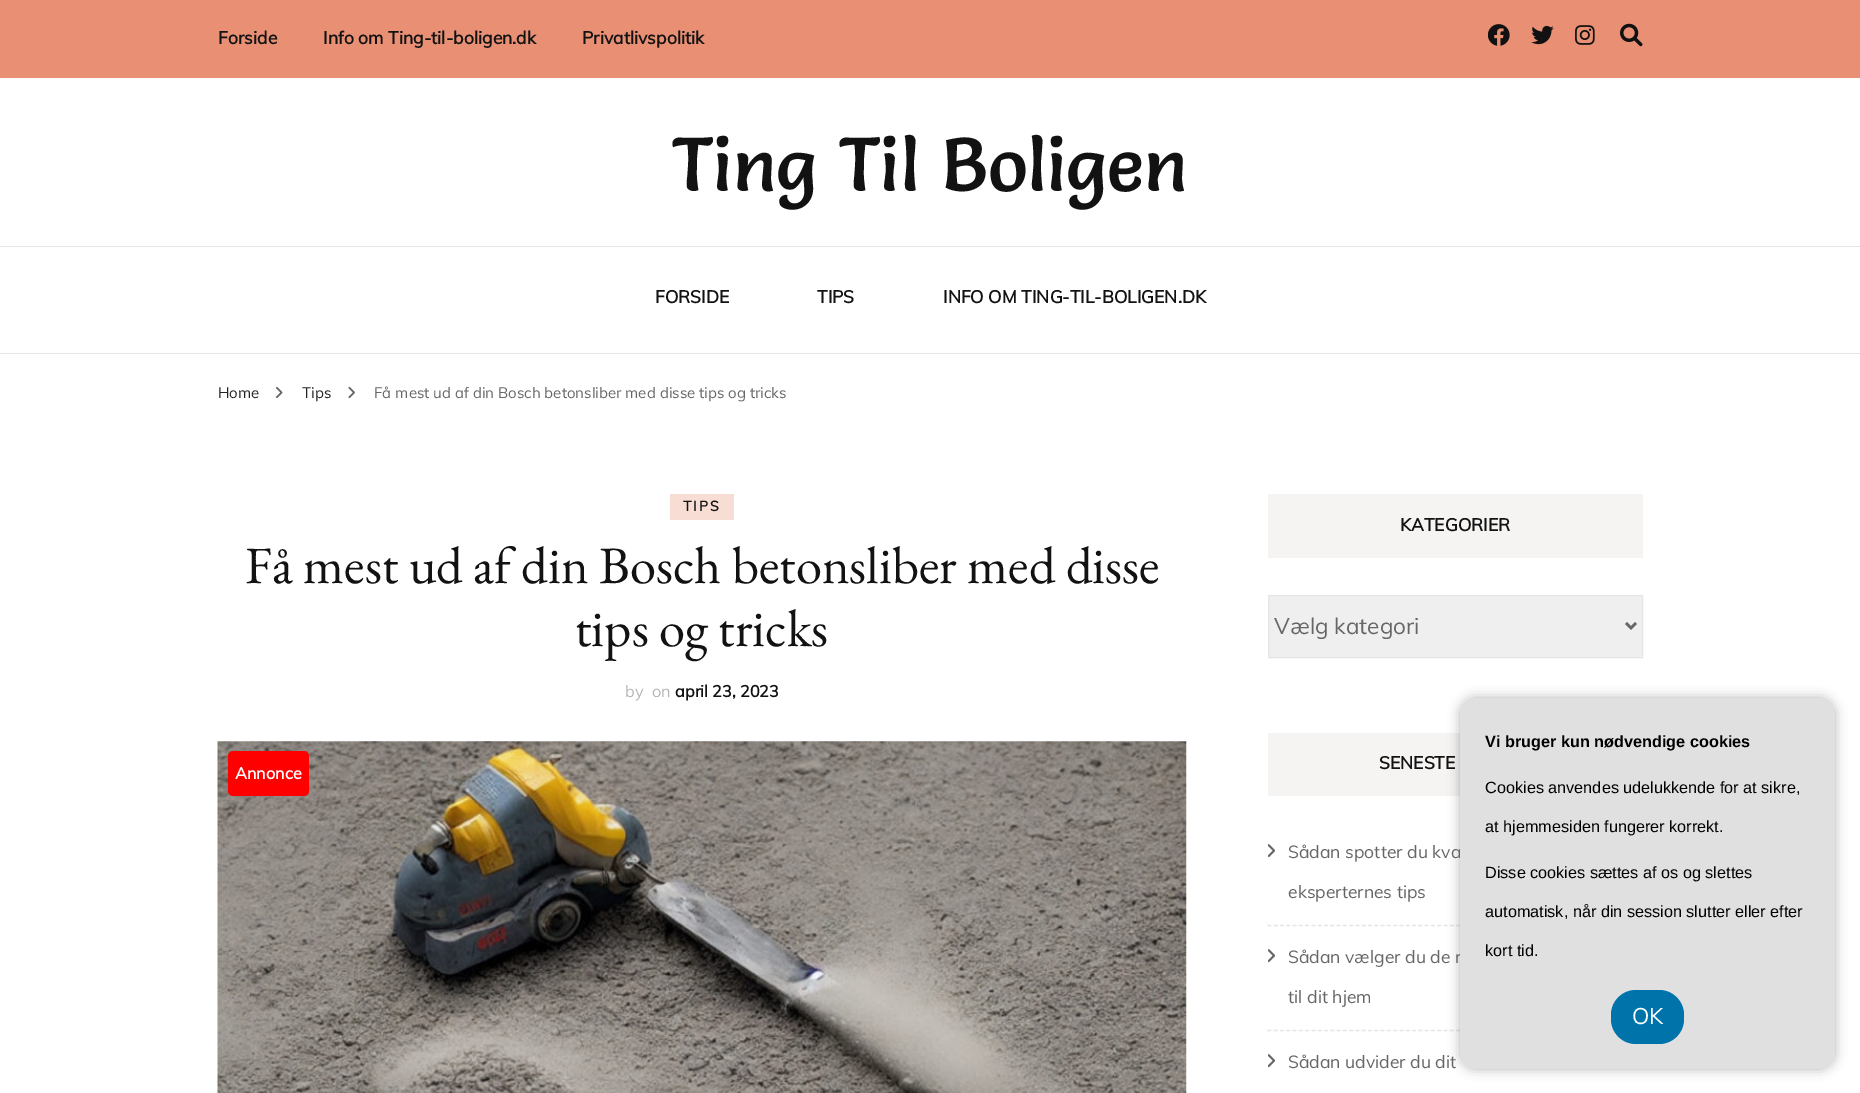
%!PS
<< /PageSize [1860 1093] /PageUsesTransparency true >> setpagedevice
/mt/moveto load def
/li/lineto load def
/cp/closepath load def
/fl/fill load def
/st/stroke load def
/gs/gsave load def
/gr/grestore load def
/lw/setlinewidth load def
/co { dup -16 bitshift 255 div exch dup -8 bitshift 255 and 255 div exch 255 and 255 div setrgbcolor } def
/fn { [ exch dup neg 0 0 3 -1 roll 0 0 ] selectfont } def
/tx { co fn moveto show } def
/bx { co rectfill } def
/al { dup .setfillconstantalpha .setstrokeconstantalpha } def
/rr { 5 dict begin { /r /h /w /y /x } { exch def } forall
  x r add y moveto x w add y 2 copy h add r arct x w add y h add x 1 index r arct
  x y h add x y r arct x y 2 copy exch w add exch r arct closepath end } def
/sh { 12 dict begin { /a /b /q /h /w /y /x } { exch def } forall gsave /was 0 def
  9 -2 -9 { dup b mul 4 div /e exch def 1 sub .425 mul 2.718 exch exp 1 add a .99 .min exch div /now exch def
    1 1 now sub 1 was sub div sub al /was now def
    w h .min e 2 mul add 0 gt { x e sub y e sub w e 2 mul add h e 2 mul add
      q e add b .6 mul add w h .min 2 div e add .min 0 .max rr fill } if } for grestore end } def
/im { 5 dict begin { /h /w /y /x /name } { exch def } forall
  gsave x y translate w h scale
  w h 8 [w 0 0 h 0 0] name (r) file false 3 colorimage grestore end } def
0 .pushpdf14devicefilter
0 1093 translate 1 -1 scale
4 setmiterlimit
0 0 1860 1093 16#FFFFFF bx
0 0 1860 78 16#E88F74 bx
(media/1.raw) 1488 24 22 22 im
(media/2.raw) 1531 25 23 20 im
(media/3.raw) 1575 25 20 20 im
(media/4.raw) 1620 23 23 24 im
0 246 1860 1 16#E5E5E5 bx
0 353 1860 1 16#E5E5E5 bx
(media/5.raw) 276 386 7 13 im
(media/6.raw) 348 386 7 13 im
670 494 64 26 16#F8DDD5 bx
(media/7.raw) 217 741 970 352 im
16#FF0000 co
228 751 81 45 5 rr fl
1268 494 375 64 16#F6F4F3 bx
16#EFEFEF co
1268.5 595.5 mt 1642.5 595.5 li 1642.5 657.5 li 1268.5 657.5 li cp gs fl gr
16#E5E5E5 co
st
16#666666 co
2.5 lw
1626 623 mt 1631 628 li 1636 623 li st
1268 733 192 63 16#F6F4F3 bx
16#E5E5E5 co
1.2 lw
[3.75 2.54] 0 setdash
1267.5 925.5 mt 1642.5 925.5 li st
(media/8.raw) 1268 844 7 14 im
1267.5 1030.5 mt 1642.5 1030.5 li st
(media/8.raw) 1268 949 7 14 im
(media/8.raw) 1268 1054 7 14 im
16#000000 co
1460 698 375 371 15 6 .3 sh
(Forside) 218 44 /Muli-Bold 17.5 16#121212 tx
(Info om Ting-til-boligen.dk) 323 44 /Muli-Bold 17.5 16#121212 tx
(Privatlivspolitik) 582 44 /Muli-Bold 17.5 16#121212 tx
(Ting Til Boligen) 672 191 /Salsa-Regular 75 16#121212 tx
(FORSIDE) 655 303 /Muli-Bold 17.5 16#121212 tx
(TIPS) 817 303 /Muli-Bold 17.5 16#121212 tx
(INFO OM TING-TIL-BOLIGEN.DK) 943 303 /Muli-Bold 17.5 16#121212 tx
(Home) 218 398 /Muli-Regular 15 16#222222 tx
(Tips) 302 398 /Muli-Regular 15 16#222222 tx
(Få mest ud af din Bosch betonsliber med disse tips og tricks) 374 398 /Muli-Regular 15 16#666666 tx
/Muli-Bold 14 fn
16#121212 co
683 511 mt 2 0 (TIPS) ashow
(Få mest ud af din Bosch betonsliber med disse) 245 583 /EBGaramond-Regular 52.5 16#121212 tx
(tips og tricks) 575 646 /EBGaramond-Regular 52.5 16#121212 tx
(by) 625 697 /Muli-Regular 16.25 16#B5B5B5 tx
(on) 652 697 /Muli-Regular 16.25 16#B5B5B5 tx
(april 23, 2023) 675 697 /Muli-Bold 16.25 16#121212 tx
(Annonce) 235 779 /Muli-Bold 16.25 16#FFFFFF tx
(KATEGORIER) 1400 531 /Muli-Bold 17.5 16#121212 tx
(Vælg kategori) 1274 634 /Muli-Regular 22.5 16#666666 tx
(SENESTE) 1379 769 /Muli-Bold 17.5 16#121212 tx
(Sådan spotter du kva) 1288 858 /Muli-Regular 17.5 16#666666 tx
(eksperternes tips) 1288 898 /Muli-Regular 17.5 16#666666 tx
(Sådan vælger du de r) 1288 963 /Muli-Regular 17.5 16#666666 tx
(til dit hjem) 1288 1003 /Muli-Regular 17.5 16#666666 tx
(Sådan udvider du dit) 1288 1068 /Muli-Regular 17.5 16#666666 tx
16#E0E0E0 co
1460 698 375 371 15 rr fl
(Vi bruger kun nødvendige cookies) 1485 747 /LiberationSans-Bold 16.25 16#000000 tx
(Cookies anvendes udelukkende for at sikre,) 1485 793 /LiberationSans-Regular 16.25 16#000000 tx
(at hjemmesiden fungerer korrekt.) 1485 832 /LiberationSans-Regular 16.25 16#000000 tx
(Disse cookies sættes af os og slettes) 1485 878 /LiberationSans-Regular 16.25 16#000000 tx
(automatisk, når din session slutter eller efter) 1485 917 /LiberationSans-Regular 16.25 16#000000 tx
(kort tid.) 1485 956 /LiberationSans-Regular 16.25 16#000000 tx
16#0073AA co
1611 990 73 54 25 rr fl
(OK) 1632 1024 /Muli-Regular 22.5 16#FFFFFF tx
.poppdf14devicefilter showpage
